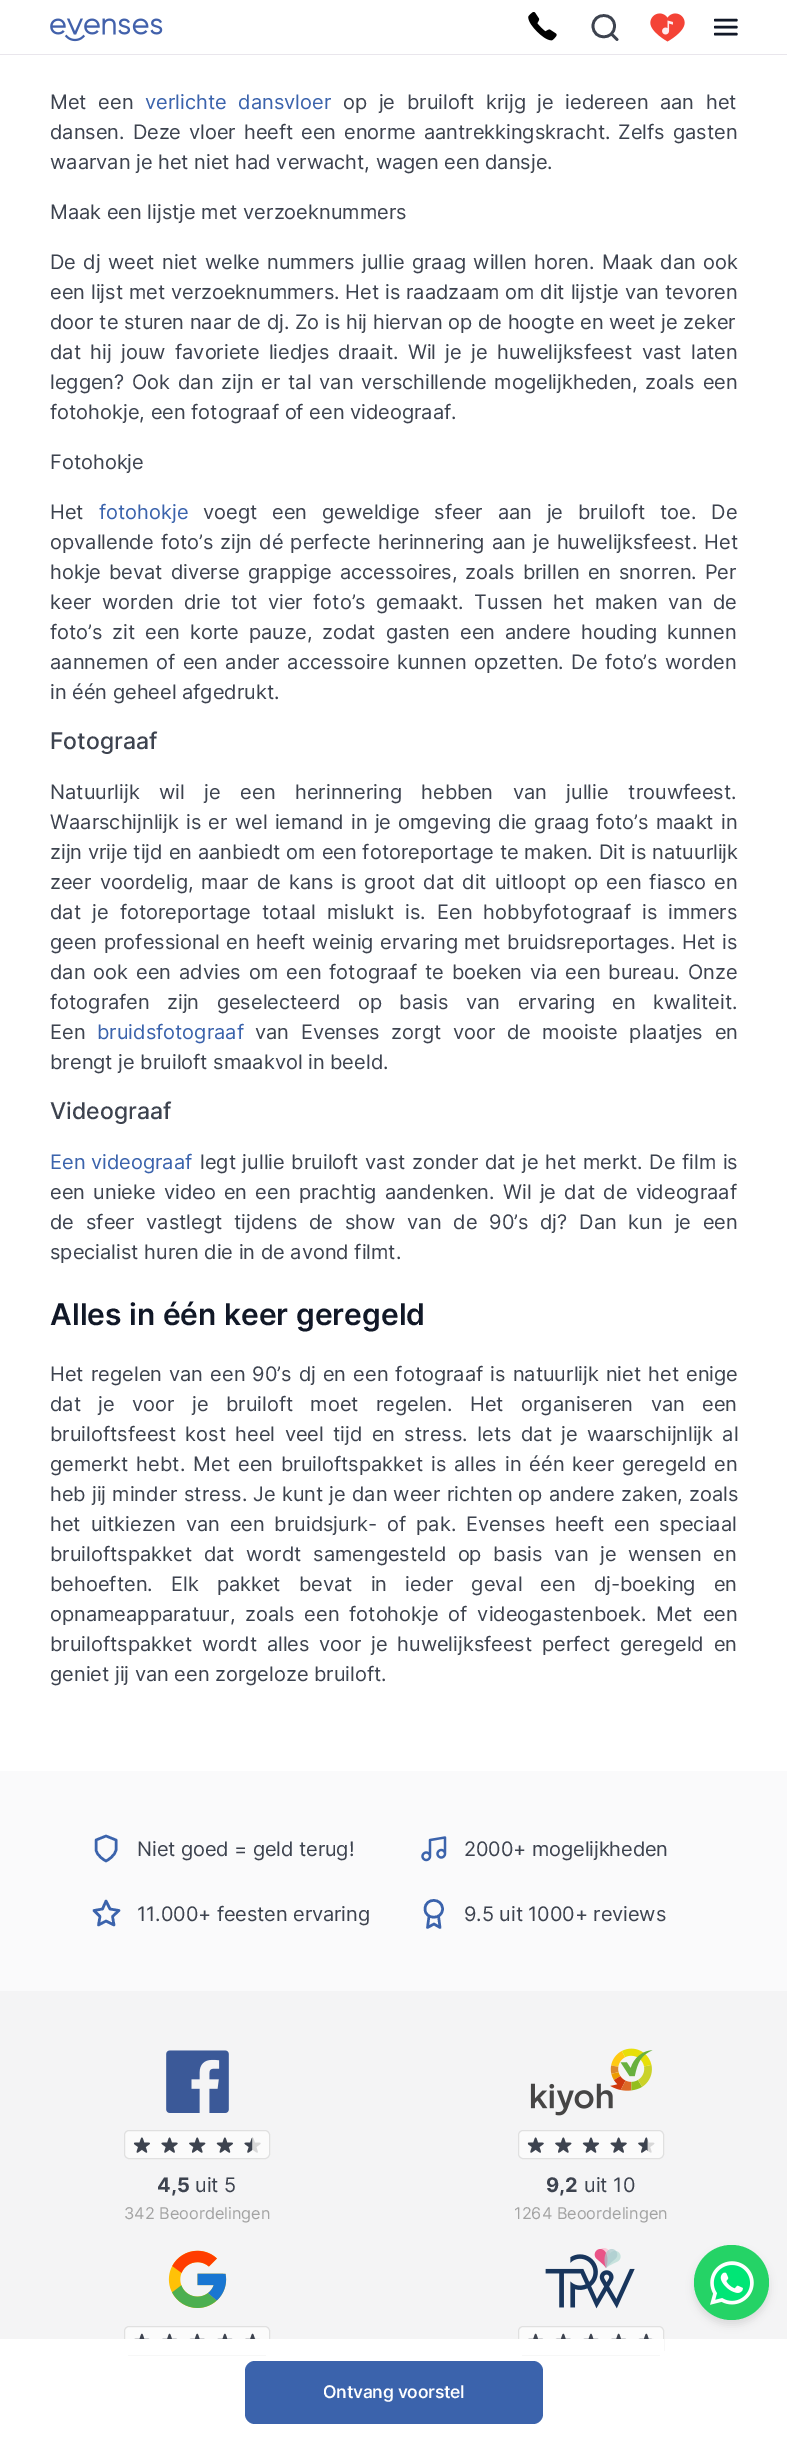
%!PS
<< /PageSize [787 2445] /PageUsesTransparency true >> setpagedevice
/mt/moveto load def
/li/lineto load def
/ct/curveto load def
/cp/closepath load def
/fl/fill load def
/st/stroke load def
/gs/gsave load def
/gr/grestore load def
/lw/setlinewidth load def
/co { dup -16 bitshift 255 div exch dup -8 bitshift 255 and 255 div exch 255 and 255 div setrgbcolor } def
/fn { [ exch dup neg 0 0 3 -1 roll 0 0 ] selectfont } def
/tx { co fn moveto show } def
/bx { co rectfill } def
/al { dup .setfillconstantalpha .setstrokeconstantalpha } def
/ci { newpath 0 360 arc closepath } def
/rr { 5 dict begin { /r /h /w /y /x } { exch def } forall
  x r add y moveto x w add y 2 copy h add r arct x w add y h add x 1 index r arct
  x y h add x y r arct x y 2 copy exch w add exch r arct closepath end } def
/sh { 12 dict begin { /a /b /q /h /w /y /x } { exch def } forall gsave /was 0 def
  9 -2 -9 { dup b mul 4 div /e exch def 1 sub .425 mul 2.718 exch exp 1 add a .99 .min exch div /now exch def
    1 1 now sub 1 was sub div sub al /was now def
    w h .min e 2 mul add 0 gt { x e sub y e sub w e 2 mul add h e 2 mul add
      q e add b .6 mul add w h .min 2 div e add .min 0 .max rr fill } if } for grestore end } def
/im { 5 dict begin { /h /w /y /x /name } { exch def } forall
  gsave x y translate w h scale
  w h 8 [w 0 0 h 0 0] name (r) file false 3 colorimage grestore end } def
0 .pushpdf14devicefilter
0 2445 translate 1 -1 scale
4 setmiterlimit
0 0 787 2445 16#FFFFFF bx
0 54 787 1 16#E9E6EC bx
(media/1.raw) 50 18 113 24 im
(media/2.raw) 528 12 29 29 im
16#3D434F co
2.7 lw
1 setlinecap
1 setlinejoin
617 39.5 mt 611.5 34 li 614.5 26 mt 614.5 40.5 593 40.5 593 26 ct 593 12 614.5 12 614.5 26 ct cp st
(media/3.raw) 650 13 35 29 im
gs
714 15 24 24 rectclip
16#111827 co
2.4 lw
715 27 mt 736.5 27 li 715 20 mt 736.5 20 li 715 34 mt 736.5 34 li st
gr
0 1771 787 220 16#FAFAFB bx
16#3B63AC co
2.5 lw
106 1861 mt 106 1861 116 1856 116 1849 ct 116 1840 li 106 1836 li 96 1840 li 96 1849 li 96 1856 106 1861 106 1861 ct cp st
(media/4.raw) 421 1836 26 26 im
106 1901 mt 110 1909 li 119 1910.5 li 112.5 1916.5 li 114 1925 li 106 1921 li 98.5 1925 li 100 1916.5 li 94 1910.5 li 102.5 1909 li cp st
429 1916 mt 427.5 1927.5 li 434 1924 li 440 1927.5 li 438.5 1916 li 442.5 1909 mt 442.5 1920 425 1920 425 1909 ct 425 1897.5 442.5 1897.5 442.5 1909 ct cp st
0 1991 787 348 16#F4F4F5 bx
(media/5.raw) 166 2050 63 63 im
0.62 al
16#FFFFFF co
124.5 2130.5 145 28 4.5 rr fl
1 al
16#E0E0E0 co
1 lw
0 setlinecap
0 setlinejoin
124.5 2130.5 145 28 4.5 rr st
(media/6.raw) 133 2137 128 16 im
(media/7.raw) 134 2137 119 16 im
(media/8.raw) 530 2048 123 68 im
0.62 al
16#FFFFFF co
518.5 2130.5 145 28 4.5 rr fl
1 al
16#E0E0E0 co
518.5 2130.5 145 28 4.5 rr st
(media/9.raw) 527 2137 128 16 im
(media/10.raw) 528 2137 120 16 im
(media/11.raw) 168 2250 59 58 im
0.62 al
16#FFFFFF co
124.5 2326.5 145 28 4.5 rr fl
1 al
16#E0E0E0 co
124.5 2326.5 145 28 4.5 rr st
(media/12.raw) 134 2333 126 6 im
(media/13.raw) 134 2333 122 6 im
(media/14.raw) 545 2248 90 61 im
0.62 al
16#FFFFFF co
518.5 2326.5 145 28 4.5 rr fl
1 al
16#E0E0E0 co
518.5 2326.5 145 28 4.5 rr st
(media/15.raw) 528 2333 126 6 im
(media/16.raw) 528 2333 124 6 im
124 2339 540 16 16#FFFFFF bx
16#3B63AC co
245 2361 298 63 10 rr fl
16#000000 co
694 2250 75 75 37.5 4 .1 sh
16#25D366 co
731.5 2282.5 37.5 ci fl
(media/17.raw) 710 2261 44 44 im
/Inter-Regular 20 fn
16#3D434F co
50 109 mt 6 0 32 (Met een) widthshow
16#3B63AC co
145 109 mt 6 0 32 (verlichte dansvloer) widthshow
16#3D434F co
343 109 mt 6 0 32 (op je bruiloft krijg je iedereen aan het) widthshow
50 139 mt 2.25 0 32 (dansen. Deze vloer heeft een enorme aantrekkingskracht. Zelfs gasten) widthshow
(waarvan je het niet had verwacht, wagen een dansje.) 50 169 /Inter-Regular 20 16#3D434F tx
(Maak een lijstje met verzoeknummers) 50 219 /Inter-Regular 20 16#3D434F tx
50 269 mt 1.7 0 32 (De dj weet niet welke nummers jullie graag willen horen. Maak dan ook) widthshow
50 299 mt .25 0 32 (een lijst met verzoeknummers. Het is raadzaam om dit lijstje van tevoren) widthshow
(door te sturen naar de dj. Zo is hij hiervan op de hoogte en weet je zeker) 50 329 /Inter-Regular 20 16#3D434F tx
50 359 mt 3.75 0 32 (dat hij jouw favoriete liedjes draait. Wil je je huwelijksfeest vast laten) widthshow
50 389 mt 2.25 0 32 (leggen? Ook dan zijn er tal van verschillende mogelijkheden, zoals een) widthshow
(fotohokje, een fotograaf of een videograaf.) 50 419 /Inter-Regular 20 16#3D434F tx
(Fotohokje) 50 469 /Inter-Regular 20 16#3D434F tx
(Het) 50 519 /Inter-Regular 20 16#3D434F tx
(fotohokje) 99 519 /Inter-Regular 20 16#3B63AC tx
16#3D434F co
203 519 mt 9.25 0 32 (voegt een geweldige sfeer aan je bruiloft toe. De) widthshow
50 549 mt 1.5 0 32 (opvallende foto’s zijn dé perfecte herinnering aan je huwelijksfeest. Het) widthshow
50 579 mt 2.25 0 32 (hokje bevat diverse grappige accessoires, zoals brillen en snorren. Per) widthshow
50 609 mt 4.9 0 32 (keer worden drie tot vier foto’s gemaakt. Tussen het maken van de) widthshow
50 639 mt 4.25 0 32 (foto’s zit een korte pauze, zodat gasten een andere houding kunnen) widthshow
50 669 mt 2 0 32 (aannemen of een ander accessoire kunnen opzetten. De foto’s worden) widthshow
(in één geheel afgedrukt.) 50 699 /Inter-Regular 20 16#3D434F tx
(Fotograaf) 50 749 /Inter-Medium 23 16#3D434F tx
/Inter-Regular 20 fn
50 799 mt 14 0 32 (Natuurlijk wil je een herinnering hebben van jullie trouwfeest.) widthshow
50 829 mt 1.6 0 32 (Waarschijnlijk is er wel iemand in je omgeving die graag foto’s maakt in) widthshow
50 859 mt .25 0 32 (zijn vrije tijd en aanbiedt om een fotoreportage te maken. Dit is natuurlijk) widthshow
50 889 mt 2.4 0 32 (zeer voordelig, maar de kans is groot dat dit uitloopt op een fiasco en) widthshow
50 919 mt 5.5 0 32 (dat je fotoreportage totaal mislukt is. Een hobbyfotograaf is immers) widthshow
50 949 mt 1 0 32 (geen professional en heeft weinig ervaring met bruidsreportages. Het is) widthshow
50 979 mt 2.4 0 32 (dan ook een advies om een fotograaf te boeken via een bureau. Onze) widthshow
50 1009 mt 11.75 0 32 (fotografen zijn geselecteerd op basis van ervaring en kwaliteit.) widthshow
(Een) 50 1039 /Inter-Regular 20 16#3D434F tx
(bruidsfotograaf) 97 1039 /Inter-Regular 20 16#3B63AC tx
16#3D434F co
255 1039 mt 6 0 32 (van Evenses zorgt voor de mooiste plaatjes en) widthshow
(brengt je bruiloft smaakvol in beeld.) 50 1069 /Inter-Regular 20 16#3D434F tx
(Videograaf) 50 1119 /Inter-Medium 23 16#3D434F tx
(Een videograaf) 50 1169 /Inter-Regular 20 16#3B63AC tx
16#3D434F co
200 1169 mt 1 0 32 (legt jullie bruiloft vast zonder dat je het merkt. De film is) widthshow
50 1199 mt 2.6 0 32 (een unieke video en een prachtig aandenken. Wil je dat de videograaf) widthshow
50 1229 mt 6.25 0 32 (de sfeer vastlegt tijdens de show van de 90’s dj? Dan kun je een) widthshow
(specialist huren die in de avond filmt.) 50 1259 /Inter-Regular 20 16#3D434F tx
(Alles in één keer geregeld) 50 1325 /Inter-SemiBold 30 16#111827 tx
/Inter-Regular 20 fn
16#3D434F co
50 1381 mt 1.5 0 32 (Het regelen van een 90’s dj en een fotograaf is natuurlijk niet het enige) widthshow
50 1411 mt 11.75 0 32 (dat je voor je bruiloft moet regelen. Het organiseren van een) widthshow
50 1441 mt 3.75 0 32 (bruiloftsfeest kost heel veel tijd en stress. Iets dat je waarschijnlijk al) widthshow
50 1471 mt 2.4 0 32 (gemerkt hebt. Met een bruiloftspakket is alles in één keer geregeld en) widthshow
50 1501 mt .5 0 32 (heb jij minder stress. Je kunt je dan weer richten op andere zaken, zoals) widthshow
50 1531 mt 4.25 0 32 (het uitkiezen van een bruidsjurk- of pak. Evenses heeft een speciaal) widthshow
50 1561 mt 6 0 32 (bruiloftspakket dat wordt samengesteld op basis van je wensen en) widthshow
50 1591 mt 12.5 0 32 (behoeften. Elk pakket bevat in ieder geval een dj-boeking en) widthshow
50 1621 mt 4.25 0 32 (opnameapparatuur, zoals een fotohokje of videogastenboek. Met een) widthshow
50 1651 mt 4 0 32 (bruiloftspakket wordt alles voor je huwelijksfeest perfect geregeld en) widthshow
(geniet jij van een zorgeloze bruiloft.) 50 1681 /Inter-Regular 20 16#3D434F tx
137 1856 mt -.1 0 (Niet goed = geld terug!) ashow
464 1856 mt -.1 0 (2000+ mogelijkheden) ashow
137 1921 mt -.1 0 (11.000+ feesten ervaring) ashow
464 1921 mt -.1 0 (9.5 uit 1000+ reviews) ashow
(4,5) 157 2192 /Inter-Bold 20 16#3D434F tx
(uit 5) 195 2192 /Inter-Regular 20 16#3D434F tx
(342 Beoordelingen) 124 2219 /Inter-Regular 16.25 16#A3A3A3 tx
(9,2) 546 2192 /Inter-Bold 20 16#3D434F tx
(uit 10) 584 2192 /Inter-Regular 20 16#3D434F tx
(1264 Beoordelingen) 514 2219 /Inter-Regular 16.25 16#A3A3A3 tx
/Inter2-Medium 17.5 fn
16#FFFFFF co
323 2398 mt -.25 0 (Ontvang voorstel) ashow
.poppdf14devicefilter showpage
